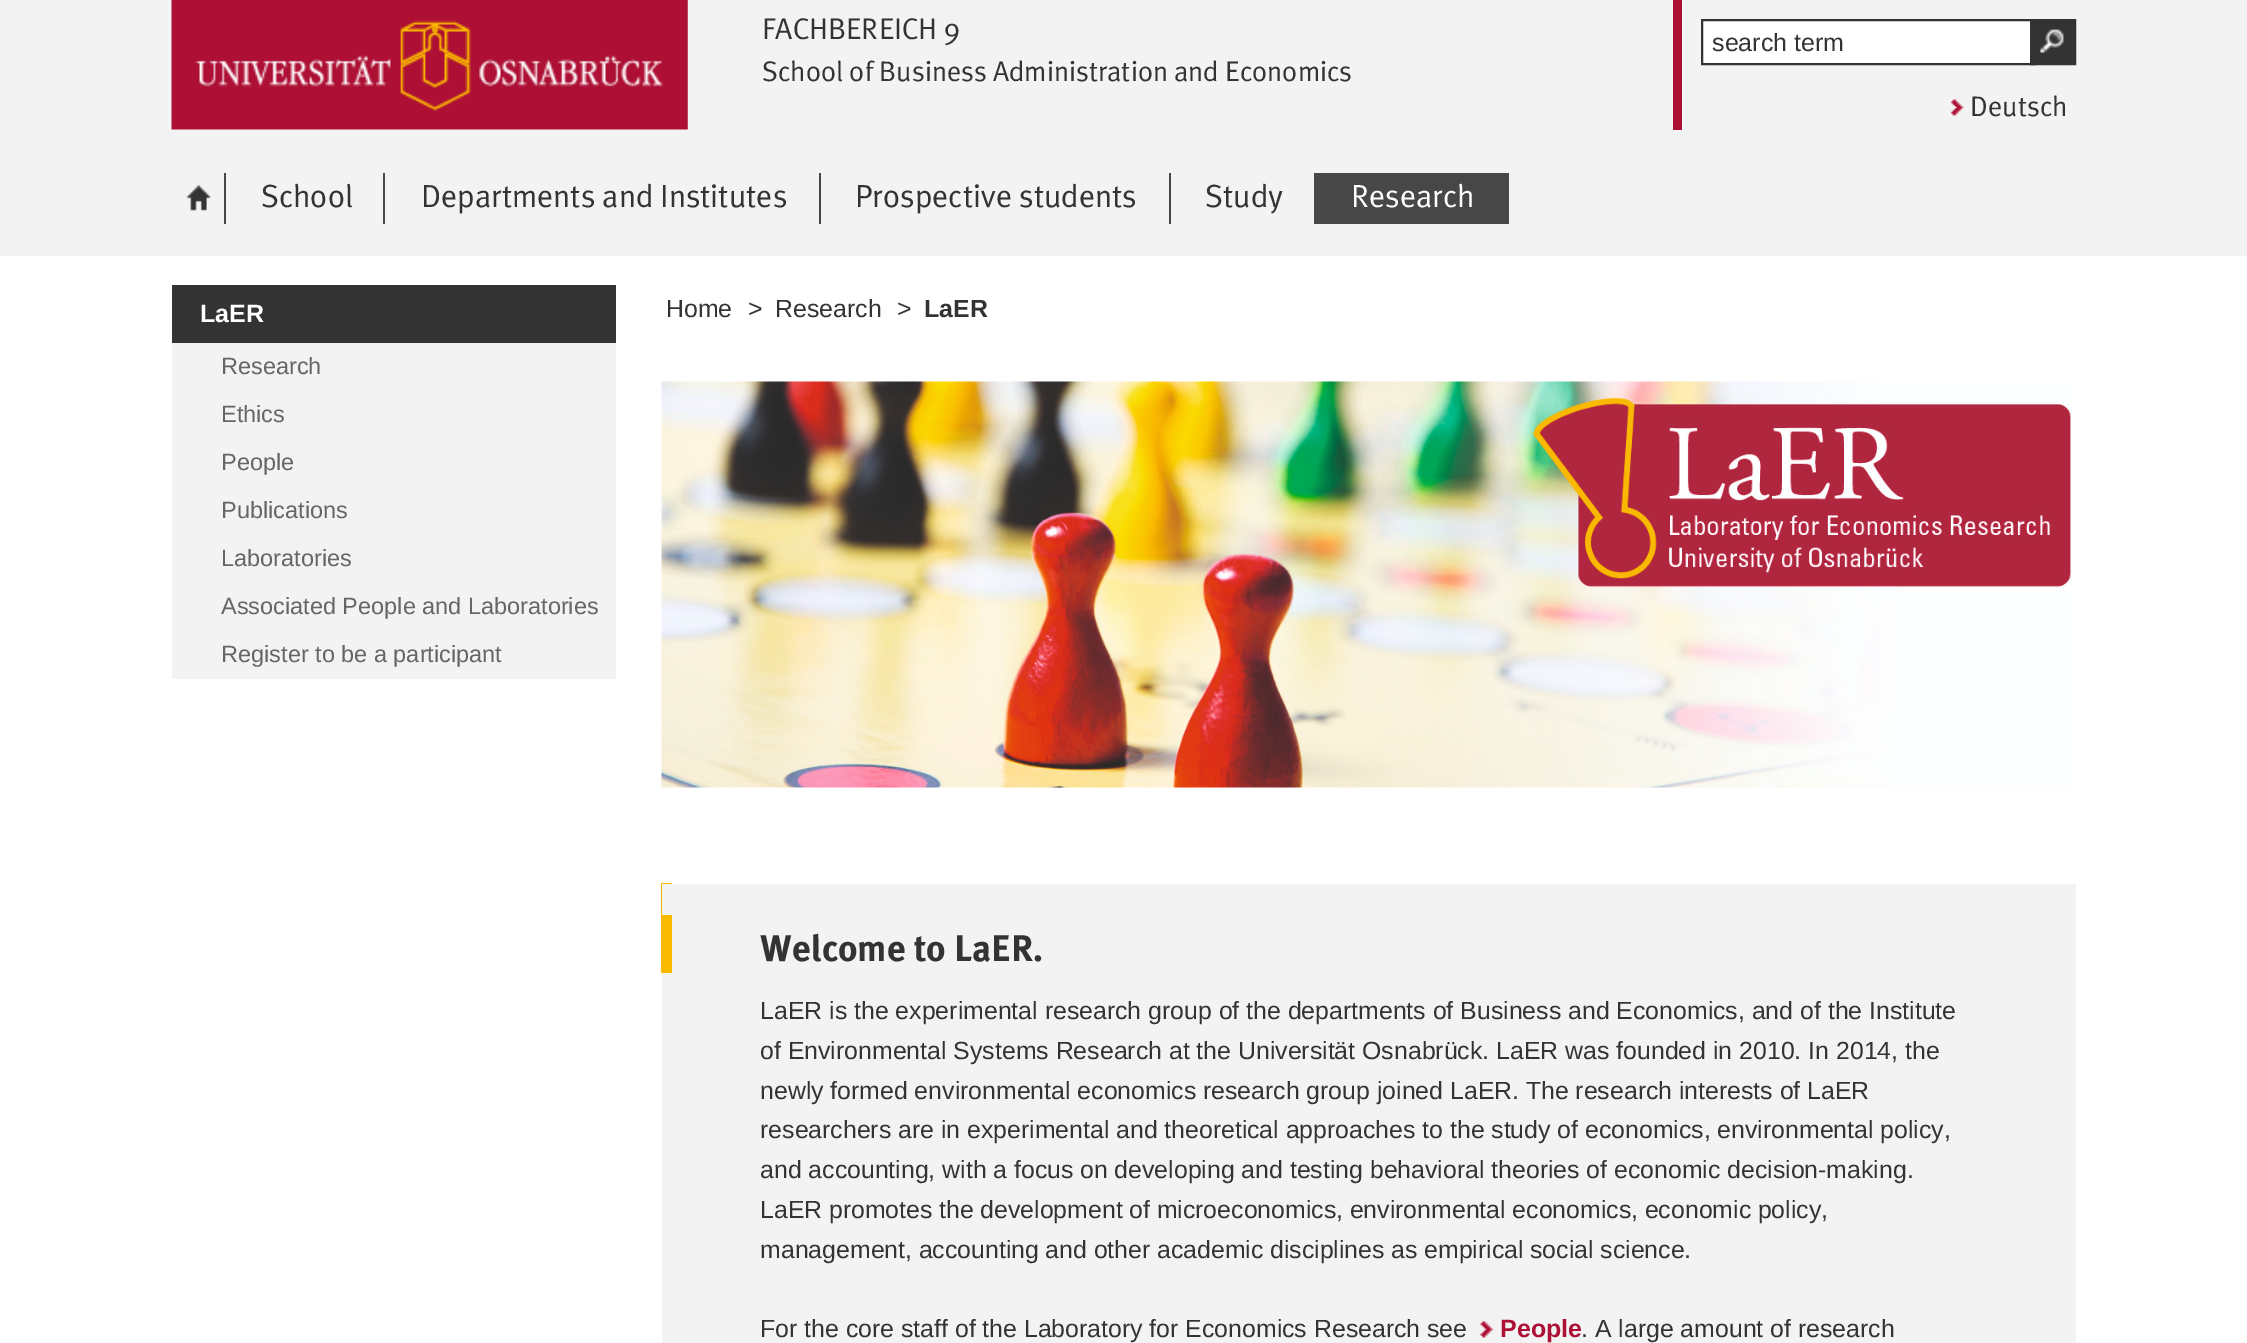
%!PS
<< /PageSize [2247 1343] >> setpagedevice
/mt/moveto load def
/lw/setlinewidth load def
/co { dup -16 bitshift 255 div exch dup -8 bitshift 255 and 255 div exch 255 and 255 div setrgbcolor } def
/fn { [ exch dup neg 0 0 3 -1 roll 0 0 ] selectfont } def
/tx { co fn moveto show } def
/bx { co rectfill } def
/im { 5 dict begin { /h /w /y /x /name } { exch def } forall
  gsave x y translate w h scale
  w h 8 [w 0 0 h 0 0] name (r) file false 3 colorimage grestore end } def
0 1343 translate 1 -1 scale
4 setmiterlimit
0 0 2247 1343 16#FFFFFF bx
0 0 2247 256 16#F3F3F3 bx
(media/1.raw) 171 0 517 130 im
1673 0 9 130 16#AC1035 bx
1703 21 327 42 16#FFFFFF bx
16#333333 co
2 lw
1702 20 332 44 rectstroke
2031 20 44 44 rectstroke
2032 21 42 42 16#333333 bx
(media/2.raw) 2040 29 24 24 im
(media/3.raw) 1950 99 14 17 im
(media/4.raw) 186 185 25 26 im
224 173 2 51 16#474747 bx
383 173 2 51 16#474747 bx
819 173 2 51 16#474747 bx
1169 173 2 51 16#474747 bx
1314 173 2 51 16#474747 bx
1316 180 191 37 16#474747 bx
1314 173 195 7 16#474747 bx
1507 173 2 51 16#474747 bx
1314 217 195 7 16#474747 bx
172 285 444 58 16#333333 bx
172 343 444 336 16#F3F3F3 bx
(media/5.raw) 661 381 1412 407 im
662 915 1414 428 16#F3F3F3 bx
661 883 11 90 16#FBB900 bx
662 884 1414 31 16#F3F3F3 bx
(media/6.raw) 1480 1321 14 17 im
(FACHBEREICH 9) 762 39 /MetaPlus-Regular 30 16#333333 tx
(School of Business Administration and Economics) 762 81 /MetaPlus-Regular 28.3 16#333333 tx
(search term) 1712 51 /LiberationSans-Regular 25 16#333333 tx
(Deutsch) 1970 116 /MetaPlus-Regular 28.3 16#333333 tx
(School) 261 207 /MetaPlus-Regular 32 16#333333 tx
(Departments and Institutes) 421 207 /MetaPlus-Regular 32 16#333333 tx
(Prospective students) 855 207 /MetaPlus-Regular 32 16#333333 tx
(Study) 1205 207 /MetaPlus-Regular 32 16#333333 tx
(Research) 1351 207 /MetaPlus-Regular 32 16#FFFFFF tx
(LaER) 200 322 /LiberationSans-Bold 25 16#FFFFFF tx
(Research) 221 374 /LiberationSans-Regular 23.5 16#666666 tx
(Ethics) 221 422 /LiberationSans-Regular 23.5 16#666666 tx
(People) 221 470 /LiberationSans-Regular 23.5 16#666666 tx
(Publications) 221 518 /LiberationSans-Regular 23.5 16#666666 tx
(Laboratories) 221 566 /LiberationSans-Regular 23.5 16#666666 tx
(Associated People and Laboratories) 221 614 /LiberationSans-Regular 23.5 16#666666 tx
(Register to be a participant) 221 662 /LiberationSans-Regular 23.5 16#666666 tx
(Home) 666 317 /LiberationSans-Regular 24.85 16#333333 tx
(>) 748 317 /LiberationSans-Regular 25 16#333333 tx
(Research) 775 317 /LiberationSans-Regular 24.85 16#333333 tx
(>) 897 317 /LiberationSans-Regular 25 16#333333 tx
(LaER) 924 317 /LiberationSans-Bold 24.85 16#333333 tx
(Welcome to LaER.) 760 961 /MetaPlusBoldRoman-Bold 37 16#333333 tx
(LaER is the experimental research group of the departments of Business and Economics, and of the Institute) 760 1019 /LiberationSans-Regular 24.85 16#333333 tx
(of Environmental Systems Research at the Universität Osnabrück. LaER was founded in 2010. In 2014, the) 760 1059 /LiberationSans-Regular 24.85 16#333333 tx
760 1099 mt -.1 0 32 (newly formed environmental economics research group joined LaER. The research interests of LaER) widthshow
760 1138 mt -.1 0 32 (researchers are in experimental and theoretical approaches to the study of economics, environmental policy,) widthshow
760 1178 mt -.1 0 32 (and accounting, with a focus on developing and testing behavioral theories of economic decision-making.) widthshow
760 1218 mt -.25 0 32 (LaER promotes the development of microeconomics, environmental economics, economic policy,) widthshow
760 1258 mt -.25 0 32 (management, accounting and other academic disciplines as empirical social science.) widthshow
(For the core staff of the Laboratory for Economics Research see) 760 1337 /LiberationSans-Regular 24.85 16#333333 tx
(People) 1500 1337 /LiberationSans-Bold 25 16#AC1035 tx
(. A large amount of research) 1581 1337 /LiberationSans-Regular 24.85 16#333333 tx
showpage
